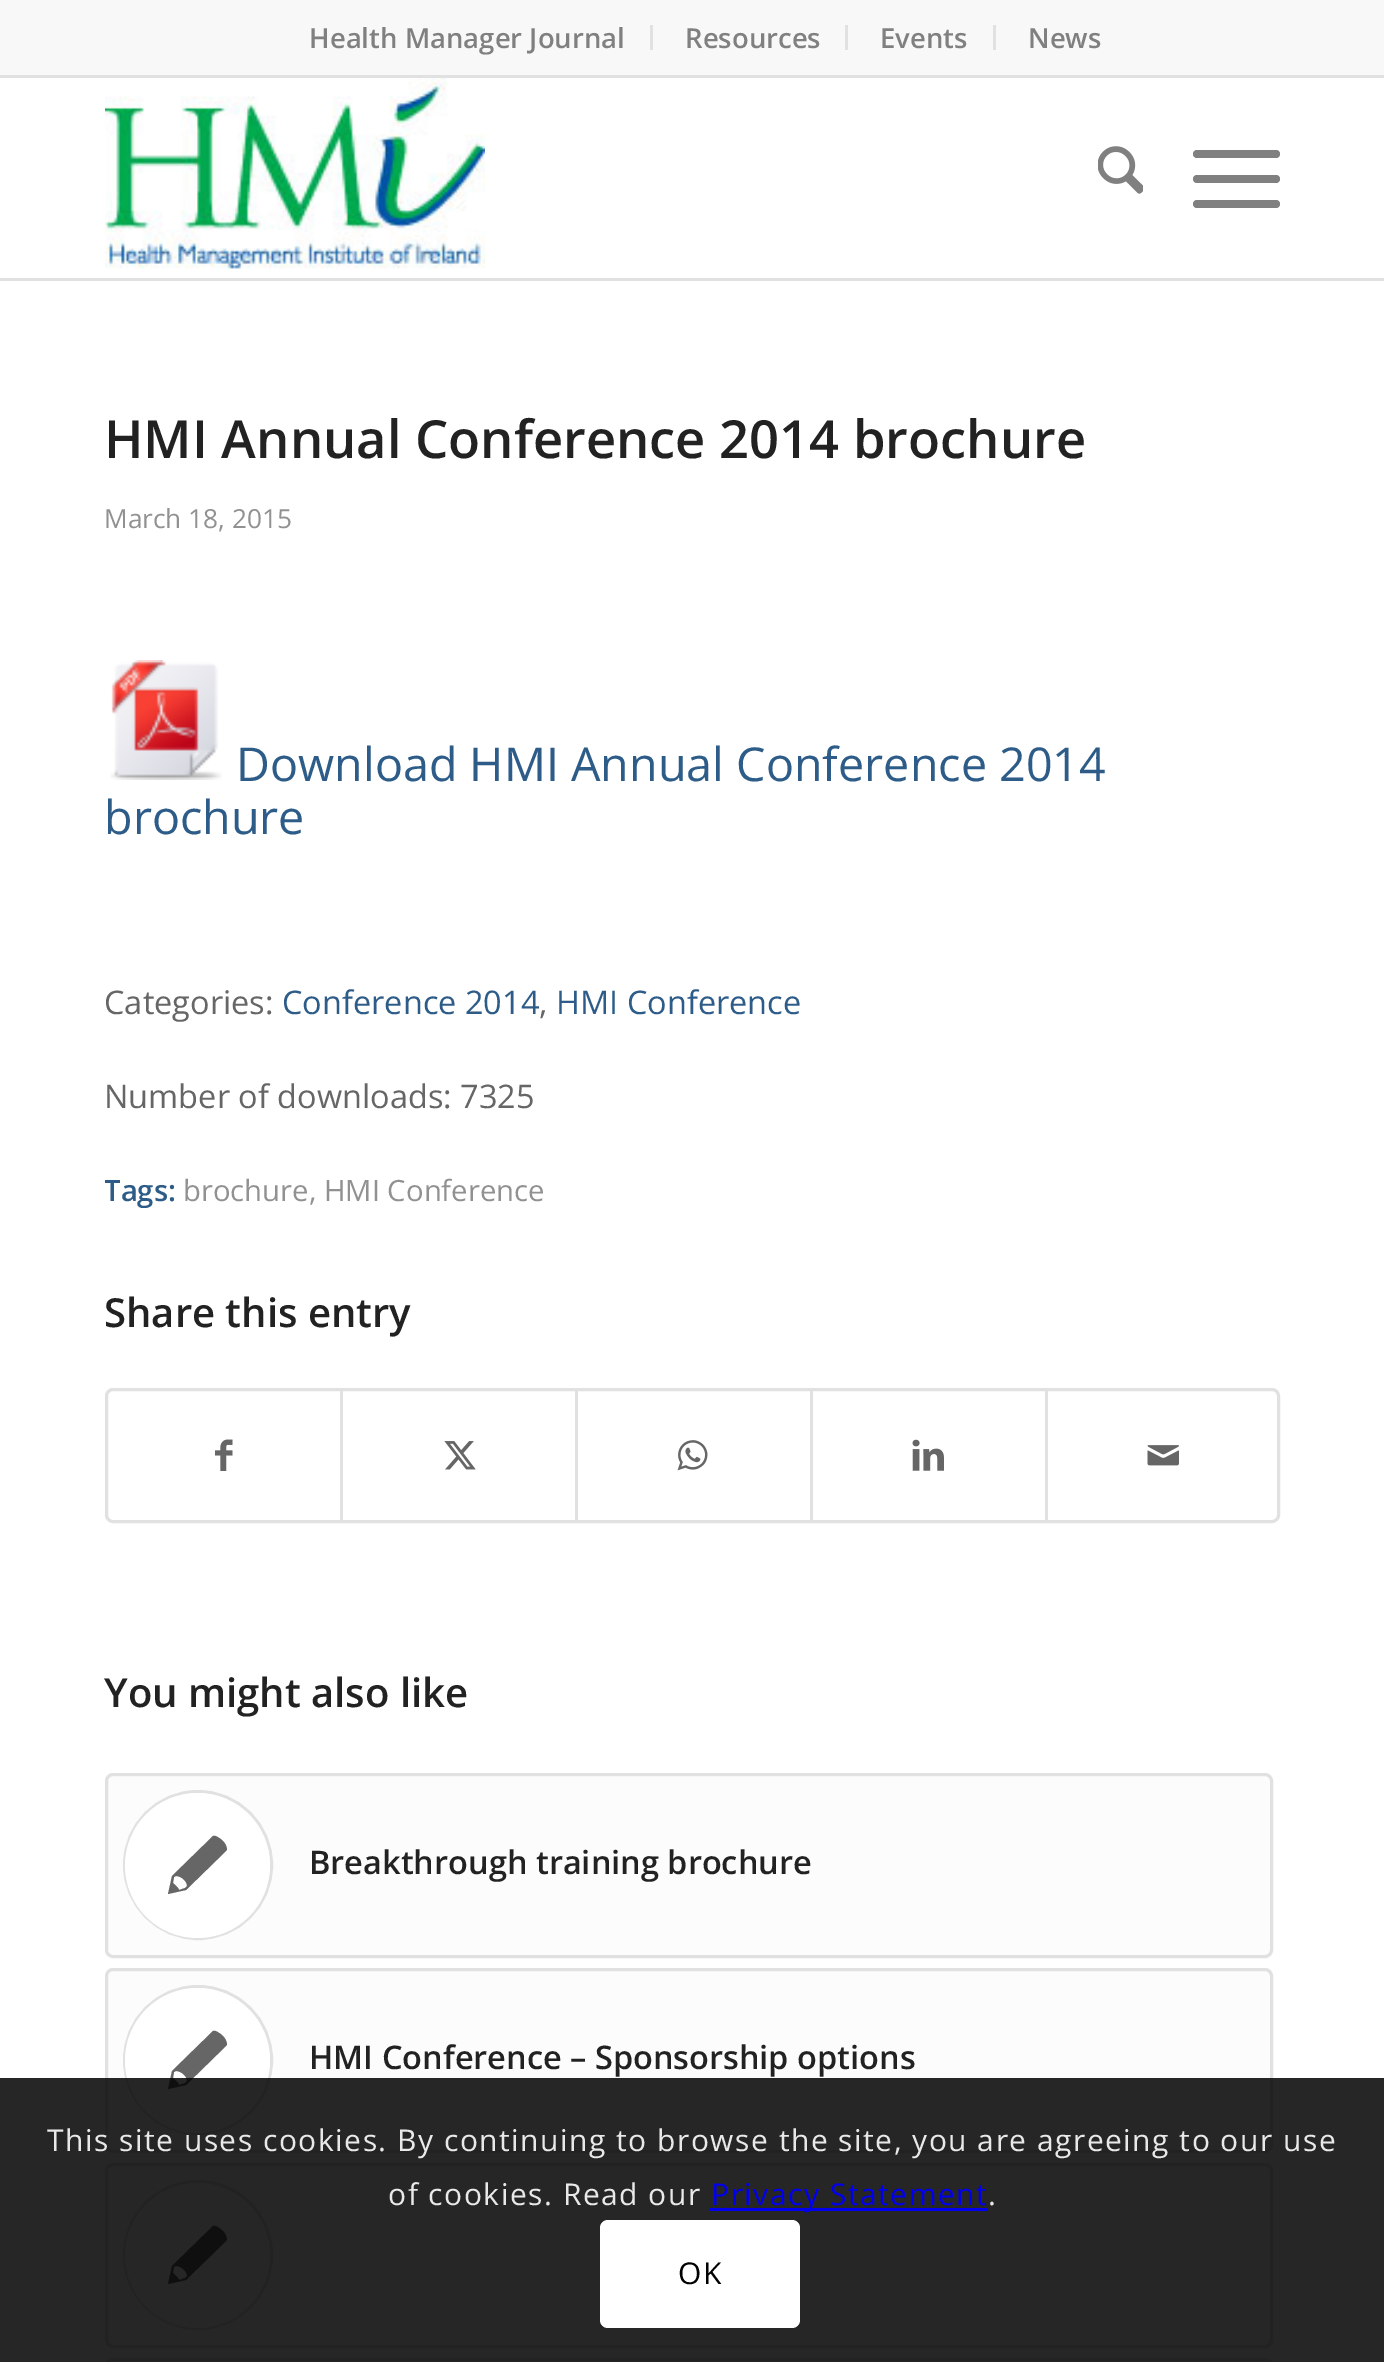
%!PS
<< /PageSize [1384 2362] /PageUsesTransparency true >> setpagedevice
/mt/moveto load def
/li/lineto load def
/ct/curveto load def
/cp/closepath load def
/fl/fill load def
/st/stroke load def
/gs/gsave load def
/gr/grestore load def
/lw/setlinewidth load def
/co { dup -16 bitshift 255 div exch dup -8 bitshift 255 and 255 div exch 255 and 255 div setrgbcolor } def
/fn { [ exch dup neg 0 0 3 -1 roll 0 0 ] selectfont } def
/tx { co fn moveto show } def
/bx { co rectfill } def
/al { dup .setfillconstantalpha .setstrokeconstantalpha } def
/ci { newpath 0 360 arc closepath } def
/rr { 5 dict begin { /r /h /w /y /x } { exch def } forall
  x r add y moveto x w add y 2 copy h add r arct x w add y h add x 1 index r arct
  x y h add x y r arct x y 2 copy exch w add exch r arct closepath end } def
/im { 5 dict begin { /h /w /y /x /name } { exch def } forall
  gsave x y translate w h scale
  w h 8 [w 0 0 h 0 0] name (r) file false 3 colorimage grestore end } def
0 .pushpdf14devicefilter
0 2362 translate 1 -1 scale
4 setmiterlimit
0 0 1384 2362 16#FFFFFF bx
0 0 1384 75 16#F8F8F8 bx
0 75 1384 3 16#E1E1E1 bx
650 25 3 25 16#E1E1E1 bx
845 25 3 25 16#E1E1E1 bx
993 25 3 25 16#E1E1E1 bx
0 278 1384 3 16#E1E1E1 bx
(media/1.raw) 105 78 380 191 im
(media/2.raw) 1098 146 45 48 im
16#808080 co
1193 175 87 8 4 rr fl
1193 150 87 8 4 rr fl
1193 200 87 8 4 rr fl
(media/3.raw) 110 660 112 120 im
16#E1E1E1 co
3 lw
106.5 1389.5 1172 132 6.5 rr st
(media/4.raw) 215 1439 18 32 im
340 1390 3 130 16#E1E1E1 bx
(media/5.raw) 444 1441 32 29 im
575 1390 3 130 16#E1E1E1 bx
(media/6.raw) 677 1440 31 31 im
810 1390 3 130 16#E1E1E1 bx
(media/7.raw) 912 1439 32 32 im
1045 1390 3 130 16#E1E1E1 bx
(media/8.raw) 1147 1445 32 21 im
16#FCFCFC co
106.5 1774.5 1165 182 6.5 rr gs fl gr
16#E1E1E1 co
st
198 1865 73.5 ci st
16#FFFFFF co
197.5 1865.5 72.5 ci fl
16#666666 co
222 1840 mt 225 1843 227 1846 227 1850 ct 186 1890 li 168 1894 li 172 1876 li 213 1836 li 215 1835 218 1837 222 1840 ct cp 185 1888 mt 187 1886 li 187 1881 181 1876 176 1876 ct 174 1877 li 173 1883 li 175 1885 178 1887 179 1890 ct cp fl
16#FCFCFC co
106.5 1969.5 1165 182 6.5 rr gs fl gr
16#E1E1E1 co
st
198 2060 73.5 ci st
16#FFFFFF co
197.5 2060.5 72.5 ci fl
16#666666 co
222 2035 mt 225 2038 227 2041 227 2045 ct 186 2085 li 168 2089 li 172 2071 li 213 2031 li 215 2030 218 2032 222 2035 ct cp 185 2083 mt 187 2081 li 187 2076 181 2071 176 2071 ct 174 2072 li 173 2078 li 175 2080 178 2082 179 2085 ct cp fl
16#FCFCFC co
106.5 2164.5 1165 182 6.5 rr gs fl gr
16#E1E1E1 co
st
198 2255 73.5 ci st
16#FFFFFF co
197.5 2255.5 72.5 ci fl
16#666666 co
222 2230 mt 225 2233 227 2236 227 2240 ct 186 2280 li 168 2284 li 172 2266 li 213 2226 li 215 2225 218 2227 222 2230 ct cp 185 2278 mt 187 2276 li 187 2271 181 2266 176 2266 ct 174 2267 li 173 2273 li 175 2275 178 2277 179 2280 ct cp fl
16#FCFCFC co
106.5 2359.5 1165 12 6.5 rr gs fl gr
16#E1E1E1 co
st
0.85 al
0 2078 1384 284 16#000000 bx
1 al
710 2208 278 3 16#0000EE bx
16#FFFFFF co
600 2220 200 108 8 rr fl
(Health Manager Journal) 309 48 /OpenSans-SemiBold 27.5 16#808080 tx
(Resources) 685 48 /OpenSans-SemiBold 27.5 16#808080 tx
(Events) 880 48 /OpenSans-SemiBold 27.5 16#808080 tx
(News) 1028 48 /OpenSans-SemiBold 27.5 16#808080 tx
(HMI Annual Conference 2014 brochure) 104 458 /OpenSans-SemiBold 52.5 16#222222 tx
(March 18, 2015) 104 528 /OpenSans-Regular 26.25 16#919191 tx
(Download HMI Annual Conference 2014) 236 781 /OpenSans-Regular 46.7 16#2D5C88 tx
(brochure) 104 834 /OpenSans-Regular 46.7 16#2D5C88 tx
(Categories:) 104 1014 /OpenSans-Regular 32.5 16#666666 tx
(Conference 2014) 282 1014 /OpenSans-Regular 32.5 16#2D5C88 tx
(,) 539 1014 /OpenSans-Regular 32.5 16#666666 tx
(HMI Conference) 556 1014 /OpenSans-Regular 32.5 16#2D5C88 tx
(Number of downloads: 7325) 104 1108 /OpenSans-Regular 32.5 16#666666 tx
gs
105 405 1175 1268 rectclip
(Tags:) 104 1201 /OpenSans-SemiBold 29.25 16#2D5C88 tx
gr
(brochure, HMI Conference) 183 1201 /OpenSans-Regular 29.25 16#919191 tx
(Share this entry) 104 1327 /OpenSans-SemiBold 40 16#222222 tx
(You might also like) 104 1707 /OpenSans-SemiBold 40 16#222222 tx
(Breakthrough training brochure) 309 1874 /OpenSans-SemiBold 32.5 16#222222 tx
(HMI Conference – Sponsorship options) 309 2069 /OpenSans-SemiBold 32.5 16#222222 tx
/OpenSans-Regular 30 fn
16#E9E9E9 co
47 2151 mt 1.5 0 (This site uses cookies. By continuing to browse the site, you are agreeing to our use) ashow
388 2205 mt 1.5 0 (of cookies. Read our) ashow
16#0000EE co
711 2205 mt 1.5 0 (Privacy Statement) ashow
16#E9E9E9 co
988 2205 mt 1.5 0 (.) ashow
16#000000 co
678 2284 mt 1.5 0 (OK) ashow
.poppdf14devicefilter showpage
